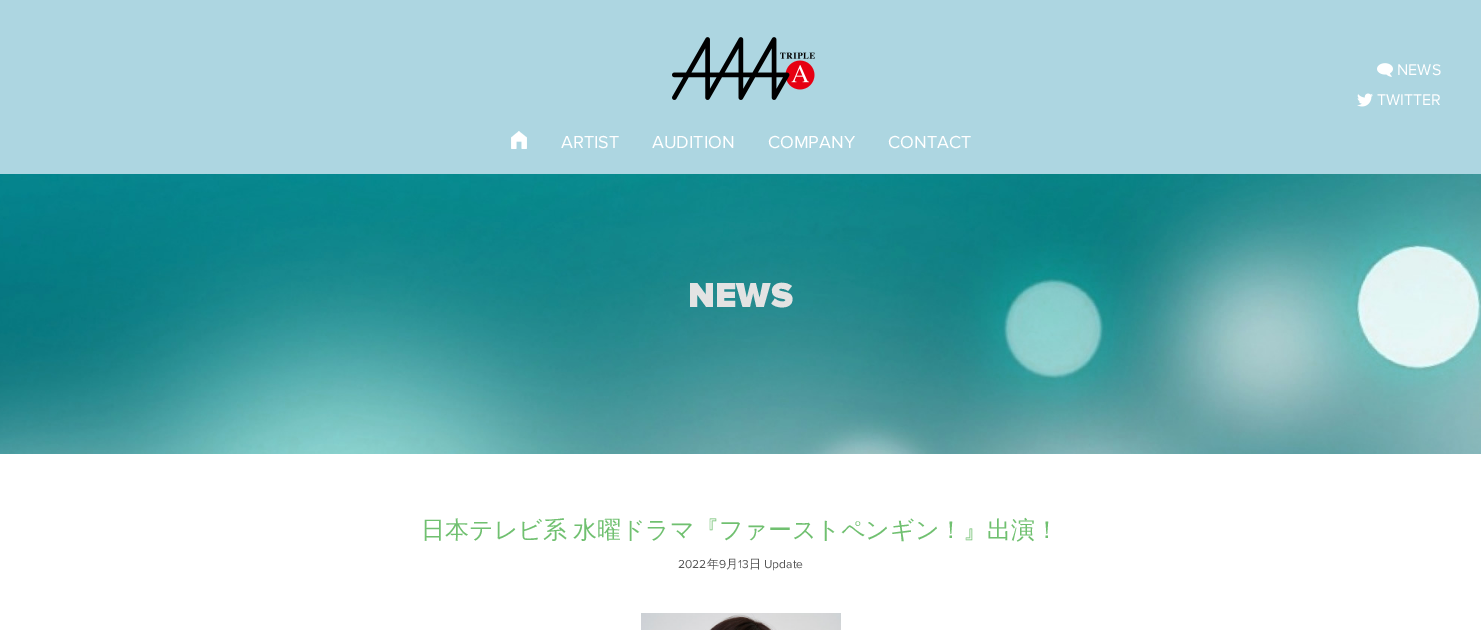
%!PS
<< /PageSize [1481 630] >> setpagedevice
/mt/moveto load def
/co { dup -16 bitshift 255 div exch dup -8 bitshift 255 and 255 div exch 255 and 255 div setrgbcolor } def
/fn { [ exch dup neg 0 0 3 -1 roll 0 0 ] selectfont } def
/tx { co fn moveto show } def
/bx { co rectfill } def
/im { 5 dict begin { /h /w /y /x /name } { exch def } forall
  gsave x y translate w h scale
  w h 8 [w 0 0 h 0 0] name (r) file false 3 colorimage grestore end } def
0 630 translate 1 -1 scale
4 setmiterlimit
0 0 1481 630 16#FFFFFF bx
0 0 1481 174 16#ADD6E1 bx
(media/1.raw) 672 37 143 63 im
(media/2.raw) 1377 63 16 14 im
(media/3.raw) 1357 93 16 14 im
(media/4.raw) 511 131 16 18 im
(media/5.raw) 0 174 1481 280 im
(media/6.raw) 641 613 200 17 im
(NEWS) 1397 75 /ProximaNova-Regular 16 16#FFFFFF tx
(TWITTER) 1377 105 /ProximaNova-Regular 16 16#FFFFFF tx
(ARTIST) 561 148 /ProximaNova-Regular 18 16#FFFFFF tx
(AUDITION) 652 148 /ProximaNova-Regular 18 16#FFFFFF tx
(COMPANY) 768 148 /ProximaNova-Regular 18 16#FFFFFF tx
(CONTACT) 888 148 /ProximaNova-Regular 18 16#FFFFFF tx
(NEWS) 688 307 /ProximaNova-Black 36 16#E3E3E3 tx
/WenQuanYiZenHei-Medium 24 fn
16#70C070 co
421 538 mt -1 0 32 (日本テレビ系 水曜ドラマ『ファーストペンギン！』出演！) widthshow
(2022) 678 568 /ProximaNova-Regular 12 16#555555 tx
(年) 707 568 /WenQuanYiZenHei-Medium 12 16#555555 tx
(9) 719 568 /ProximaNova-Regular 12 16#555555 tx
(月) 726 568 /WenQuanYiZenHei-Medium 12 16#555555 tx
(13) 738 568 /ProximaNova-Regular 12 16#555555 tx
(日) 749 568 /WenQuanYiZenHei-Medium 12 16#555555 tx
(Update) 764 568 /ProximaNova-Regular 12 16#555555 tx
showpage
